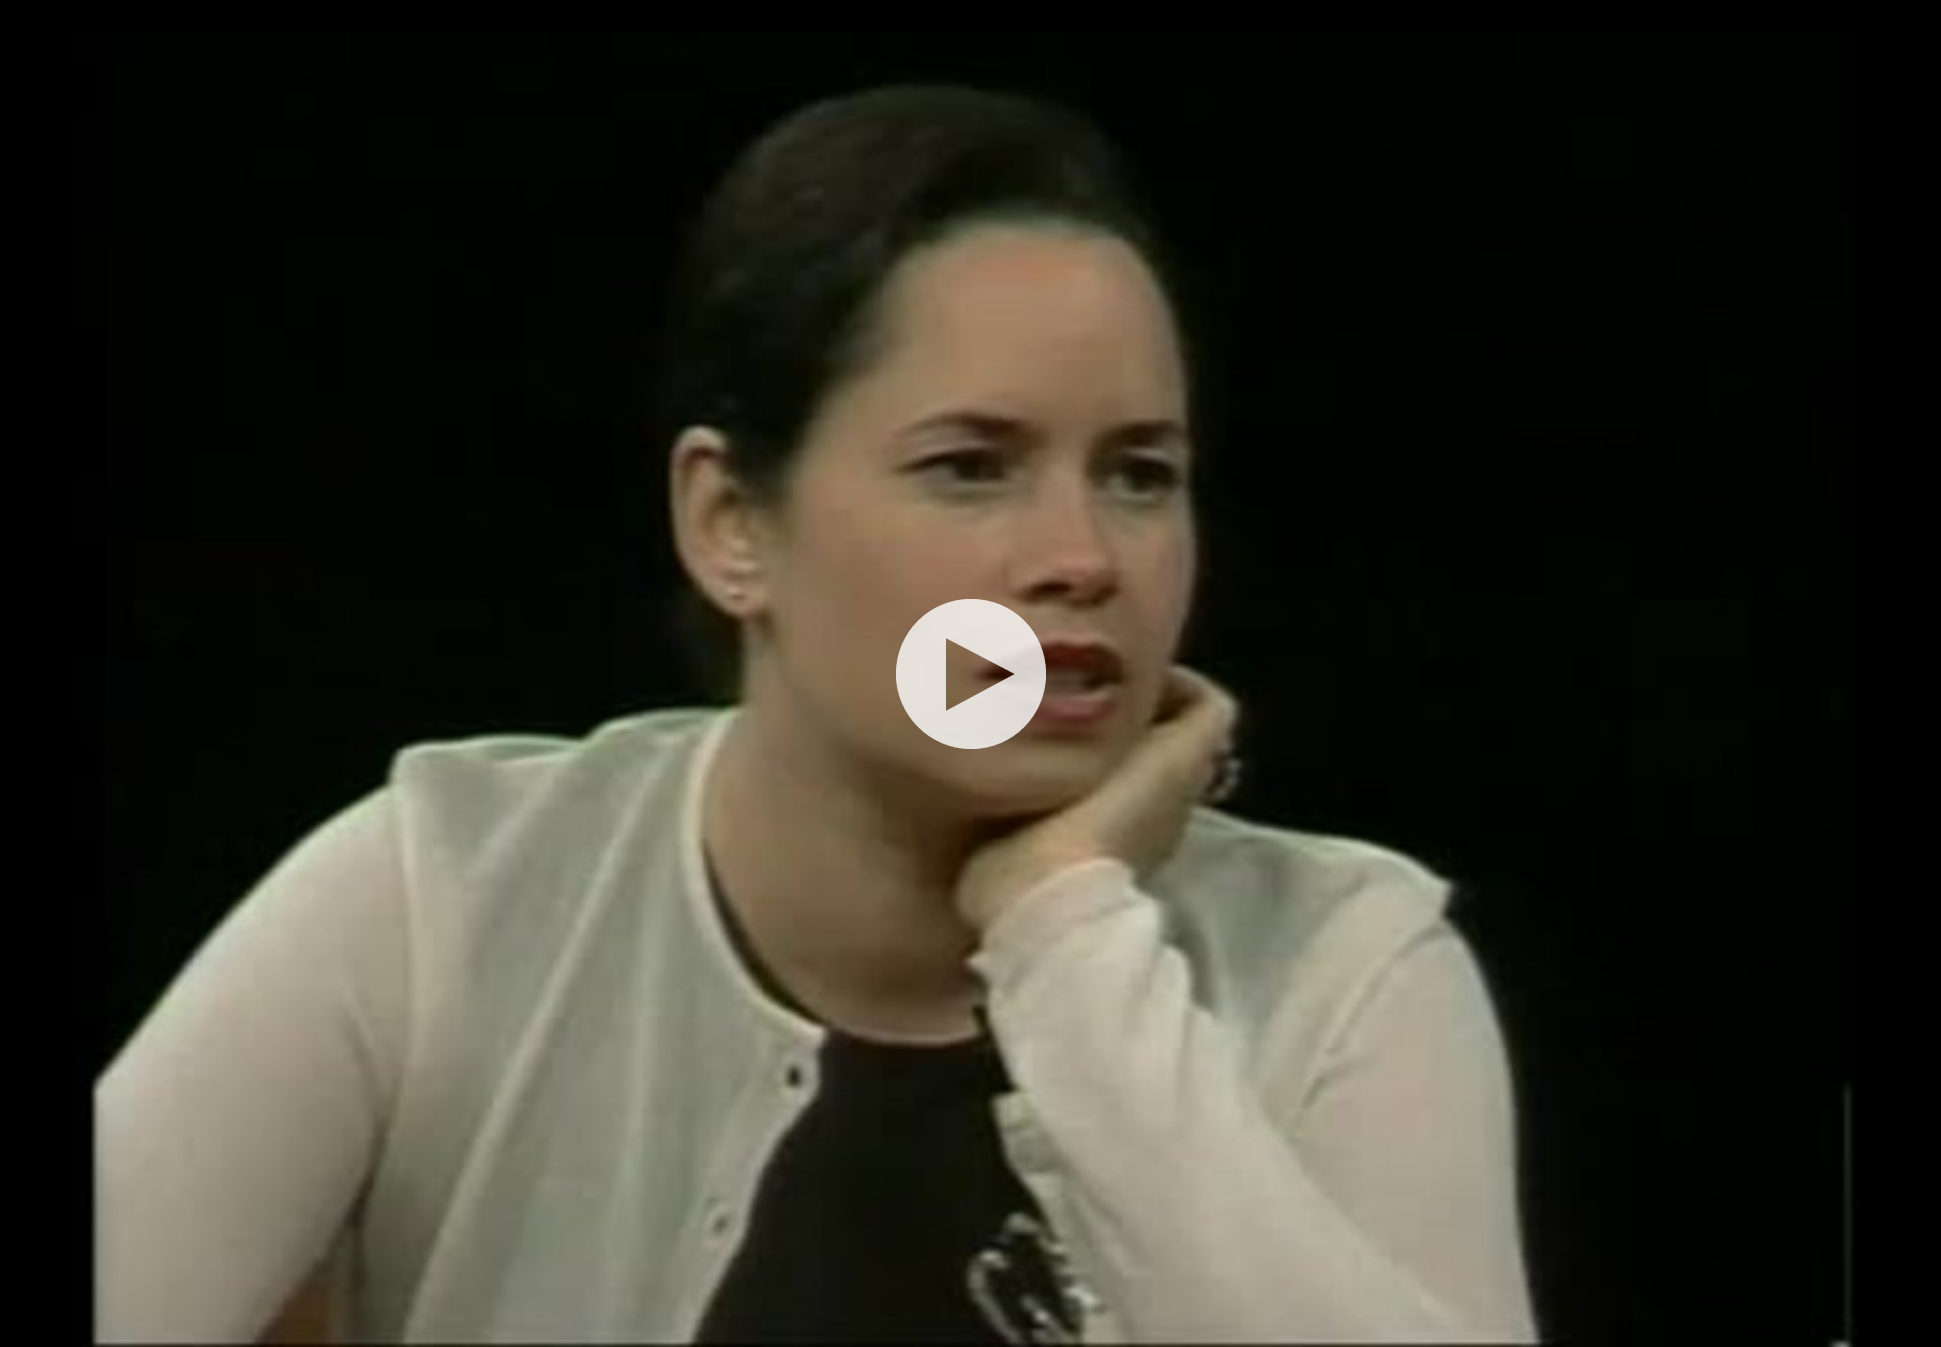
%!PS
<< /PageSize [1941 1347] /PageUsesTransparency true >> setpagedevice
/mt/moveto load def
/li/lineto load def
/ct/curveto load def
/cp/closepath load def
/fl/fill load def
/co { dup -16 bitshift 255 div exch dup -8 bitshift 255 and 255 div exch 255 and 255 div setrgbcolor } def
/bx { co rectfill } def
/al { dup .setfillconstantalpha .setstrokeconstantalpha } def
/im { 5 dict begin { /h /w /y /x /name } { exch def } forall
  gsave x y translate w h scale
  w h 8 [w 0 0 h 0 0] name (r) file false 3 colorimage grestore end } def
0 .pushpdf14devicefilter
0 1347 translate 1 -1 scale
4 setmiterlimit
0 0 1941 1347 16#000000 bx
(media/1.raw) 74 32 1783 1315 im
0.8 al
16#FFFFFF co
971 599 mt 930 599 896 632 896 674 ct 896 715 930 749 971 749 ct 1013 749 1046 715 1046 674 ct 1046 632 1013 599 971 599 ct cp 946 711 mt 946 638 li 1015 674 li cp fl
.poppdf14devicefilter showpage
